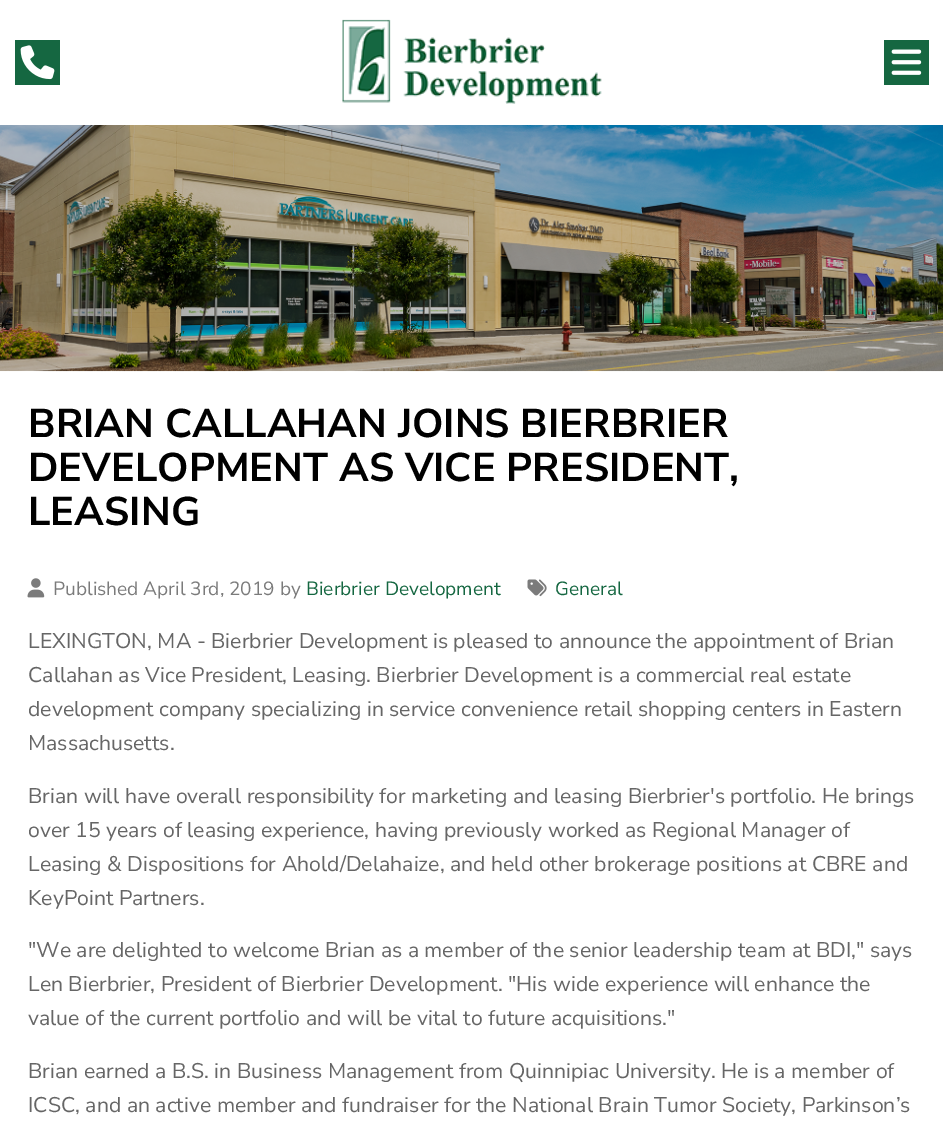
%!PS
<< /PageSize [943 1135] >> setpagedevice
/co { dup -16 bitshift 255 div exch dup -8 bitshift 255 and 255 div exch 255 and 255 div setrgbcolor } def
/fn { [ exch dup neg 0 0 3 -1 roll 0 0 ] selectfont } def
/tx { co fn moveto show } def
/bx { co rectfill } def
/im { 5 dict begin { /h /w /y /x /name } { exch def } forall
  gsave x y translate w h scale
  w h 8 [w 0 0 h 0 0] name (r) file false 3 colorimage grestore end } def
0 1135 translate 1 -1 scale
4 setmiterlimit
0 0 943 1135 16#FFFFFF bx
15 40 45 45 16#156741 bx
(media/1.raw) 20 45 35 35 im
(media/2.raw) 342 19 260 85 im
884 40 45 45 16#156741 bx
(media/3.raw) 891 49 31 26 im
(media/4.raw) 0 125 943 247 im
(media/5.raw) 27 578 18 20 im
(media/6.raw) 527 579 20 18 im
(BRIAN CALLAHAN JOINS BIERBRIER) 28 437 /NunitoSans-Bold 40 16#000000 tx
(DEVELOPMENT AS VICE PRESIDENT,) 28 481 /NunitoSans-Bold 40 16#000000 tx
(LEASING) 28 525 /NunitoSans-Bold 40 16#000000 tx
(Published April 3rd, 2019 by) 53 595 /NunitoSans-Regular 19.1 16#7B7B7B tx
(Bierbrier Development) 306 595 /NunitoSans-Regular 19.1 16#156741 tx
(General) 555 595 /NunitoSans-Regular 19.1 16#156741 tx
(LEXINGTON, MA - Bierbrier Development is pleased to announce the appointment of Brian) 28 648 /NunitoSans-Regular 21.25 16#666666 tx
(Callahan as Vice President, Leasing. Bierbrier Development is a commercial real estate) 28 682 /NunitoSans-Regular 21.25 16#666666 tx
(development company specializing in service convenience retail shopping centers in Eastern) 28 716 /NunitoSans-Regular 21.25 16#666666 tx
(Massachusetts.) 28 750 /NunitoSans-Regular 21.25 16#666666 tx
(Brian will have overall responsibility for marketing and leasing Bierbrier's portfolio. He brings) 28 803 /NunitoSans-Regular 21.25 16#666666 tx
(over 15 years of leasing experience, having previously worked as Regional Manager of) 28 837 /NunitoSans-Regular 21.25 16#666666 tx
(Leasing & Dispositions for Ahold/Delahaize, and held other brokerage positions at CBRE and) 28 871 /NunitoSans-Regular 21.25 16#666666 tx
(KeyPoint Partners.) 28 905 /NunitoSans-Regular 21.25 16#666666 tx
("We are delighted to welcome Brian as a member of the senior leadership team at BDI," says) 28 957 /NunitoSans-Regular 21.25 16#666666 tx
(Len Bierbrier, President of Bierbrier Development. "His wide experience will enhance the) 28 991 /NunitoSans-Regular 21.25 16#666666 tx
(value of the current portfolio and will be vital to future acquisitions.") 28 1025 /NunitoSans-Regular 21.25 16#666666 tx
(Brian earned a B.S. in Business Management from Quinnipiac University. He is a member of) 28 1078 /NunitoSans-Regular 21.25 16#666666 tx
(ICSC, and an active member and fundraiser for the National Brain Tumor Society, Parkinson’s) 28 1112 /NunitoSans-Regular 21.25 16#666666 tx
showpage
